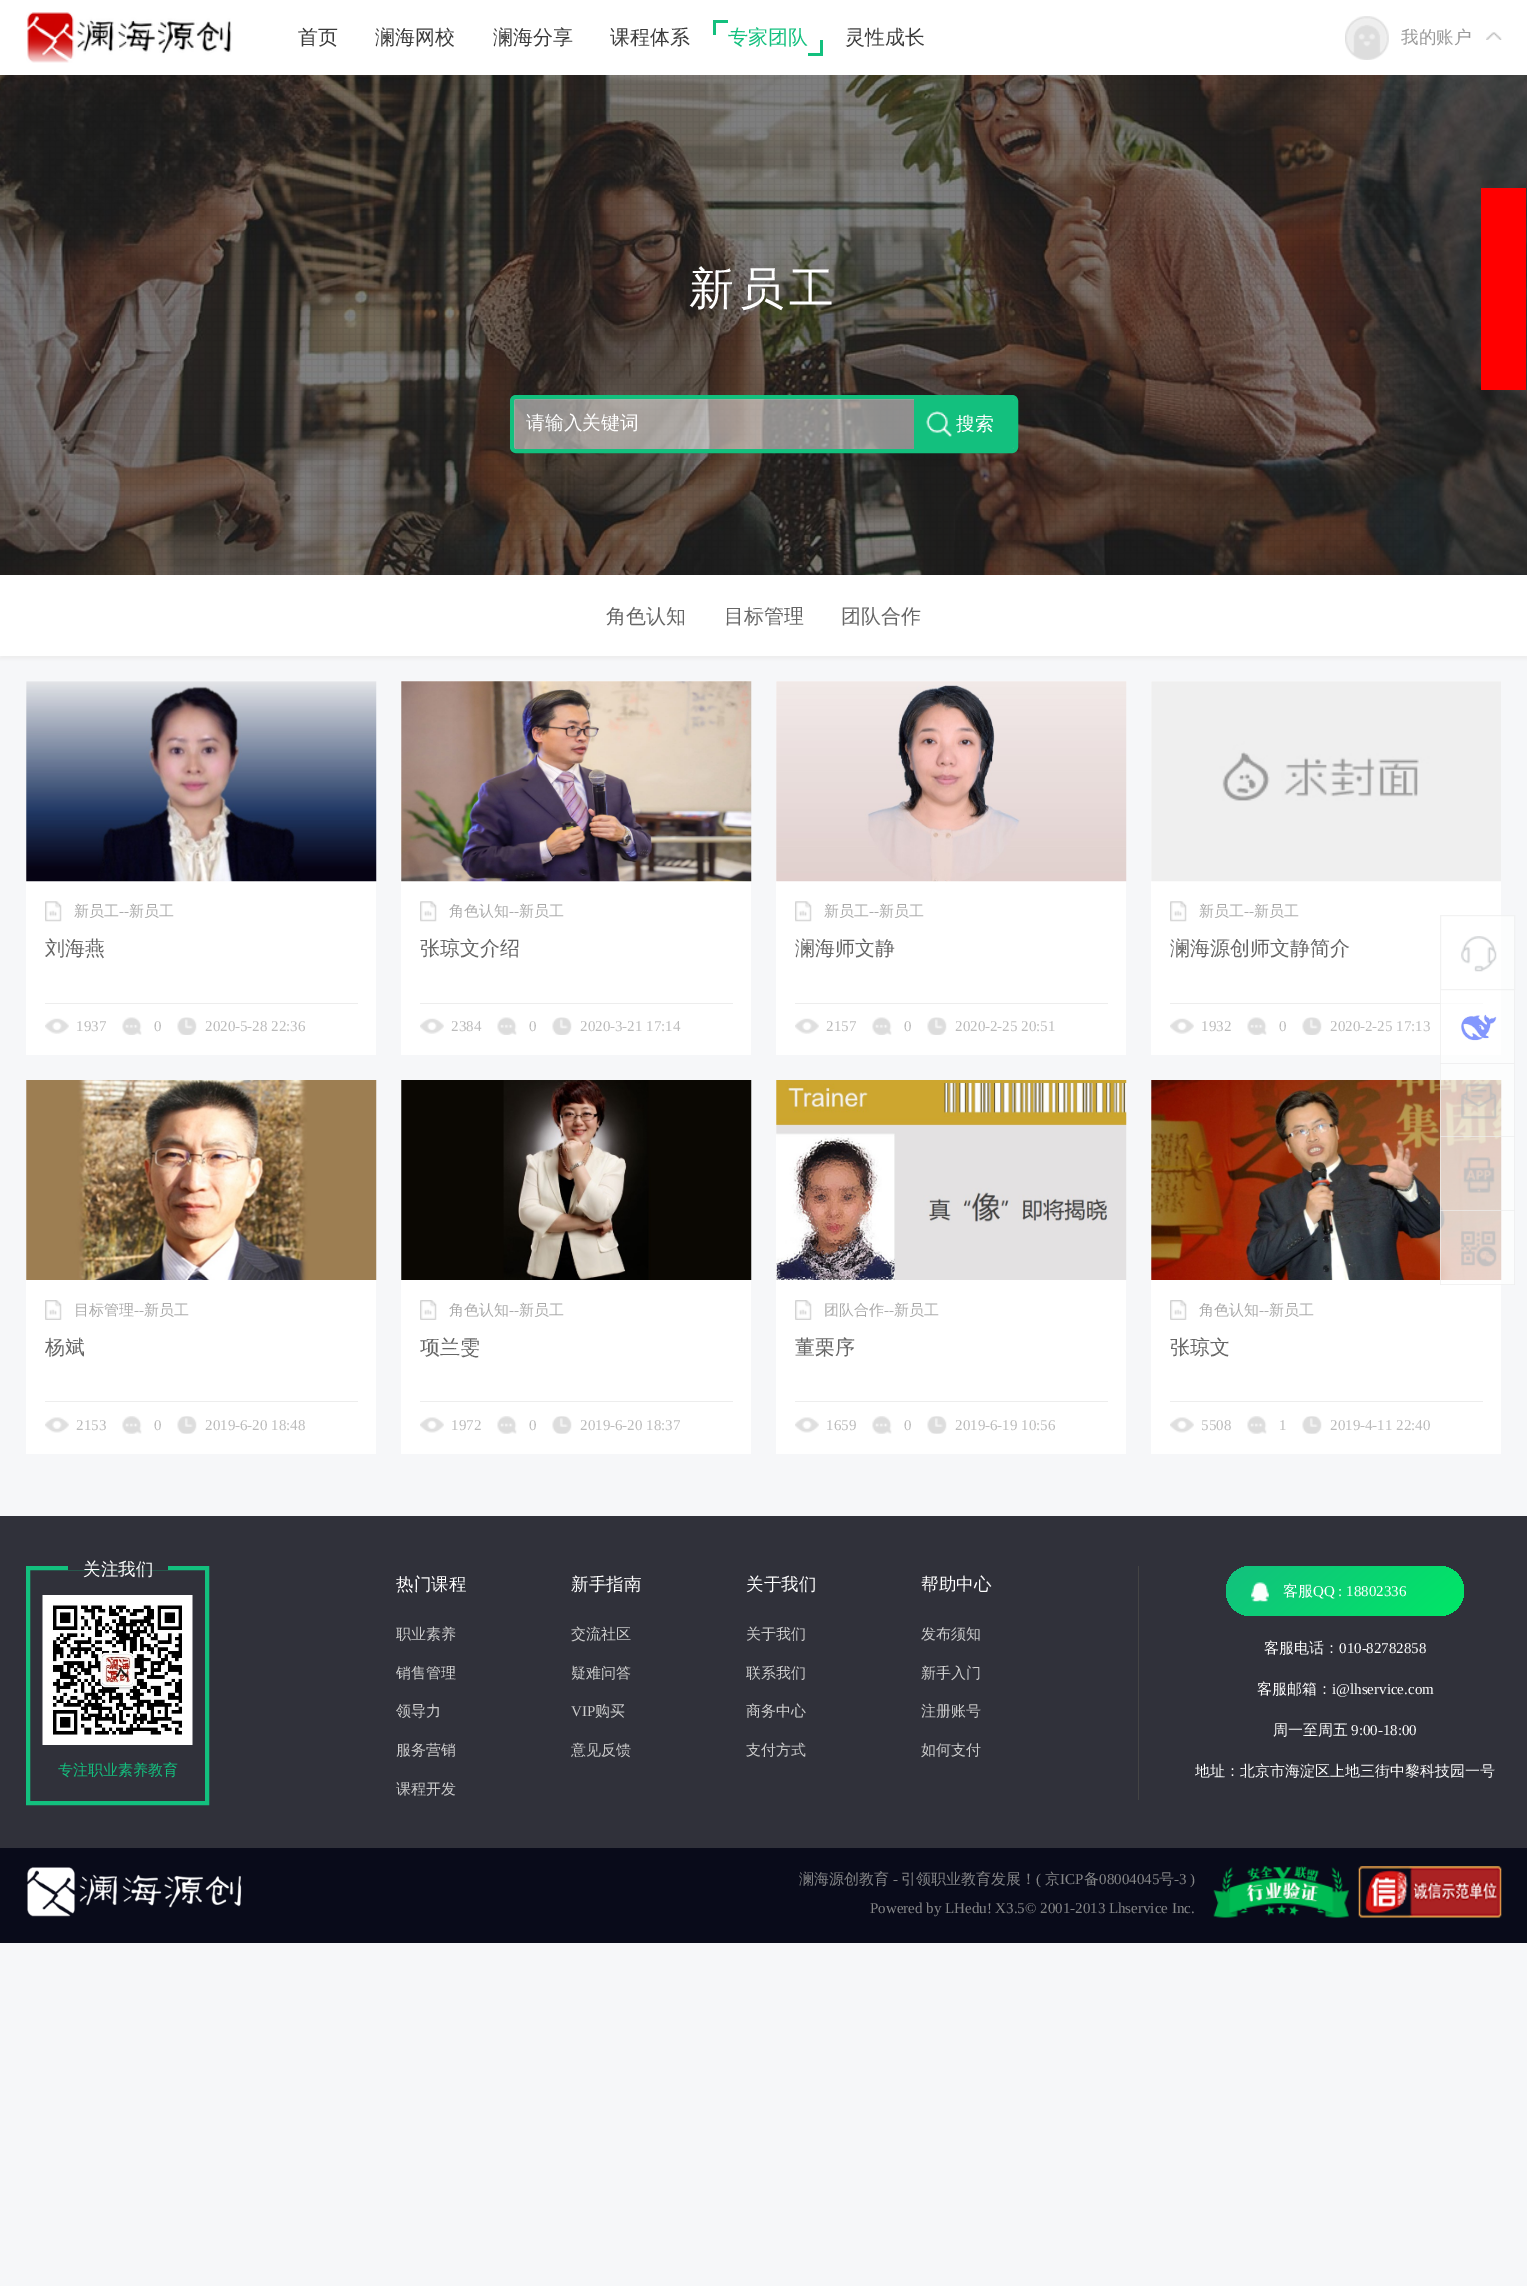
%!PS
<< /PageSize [1527 2286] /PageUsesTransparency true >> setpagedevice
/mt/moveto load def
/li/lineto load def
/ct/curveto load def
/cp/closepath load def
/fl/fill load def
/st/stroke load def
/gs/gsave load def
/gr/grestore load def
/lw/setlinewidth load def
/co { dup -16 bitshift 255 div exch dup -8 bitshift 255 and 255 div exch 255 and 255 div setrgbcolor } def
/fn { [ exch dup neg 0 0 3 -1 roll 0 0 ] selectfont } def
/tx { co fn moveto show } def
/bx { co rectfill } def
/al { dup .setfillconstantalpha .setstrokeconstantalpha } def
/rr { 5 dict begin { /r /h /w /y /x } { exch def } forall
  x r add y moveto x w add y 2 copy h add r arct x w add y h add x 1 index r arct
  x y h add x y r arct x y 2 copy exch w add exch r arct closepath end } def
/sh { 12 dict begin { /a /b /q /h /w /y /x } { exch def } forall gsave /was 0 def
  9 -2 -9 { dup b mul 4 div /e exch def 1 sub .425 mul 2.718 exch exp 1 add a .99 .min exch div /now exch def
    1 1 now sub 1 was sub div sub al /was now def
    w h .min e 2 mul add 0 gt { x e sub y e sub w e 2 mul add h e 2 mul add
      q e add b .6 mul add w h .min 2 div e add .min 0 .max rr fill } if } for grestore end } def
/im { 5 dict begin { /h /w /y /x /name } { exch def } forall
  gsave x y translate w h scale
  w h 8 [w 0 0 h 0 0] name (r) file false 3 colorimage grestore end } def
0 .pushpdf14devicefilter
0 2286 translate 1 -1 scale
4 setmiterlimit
0 0 1527 2286 16#F6F7F9 bx
1441 990 73 73 16#FCFDFD bx
1440 1055 1 9 16#F2F2F2 bx
1501 915 14 75 16#FCFDFD bx
0 0 1527 75 16#FFFFFF bx
(media/1.raw) 26 12 206 51 im
713 20 15 3 16#13C07E bx
713 20 3 15 16#13C07E bx
820 40 3 15 16#13C07E bx
808 53 15 3 16#13C07E bx
(media/2.raw) 1345 16 44 44 im
(media/3.raw) 1486 32 16 8 im
1151 681 350 374 16#FFFFFF bx
0.7 al
16#EDEDED co
1440.5 915.5 74 74 rectstroke
1 al
(media/4.raw) 1461 936 36 36 im
1514 990 1 295 16#F0F0F1 bx
1440 1063 75 1 16#F0F0F1 bx
1440 1063 1 1 16#EEEEEE bx
(media/5.raw) 1461 1014 36 27 im
1151 1080 350 374 16#FFFFFF bx
(media/33.raw) 1151 1080 351 200 im
0.7 al
1440 1064 74 74 16#FFFFFF bx
1440 1136 75 1 16#EDEDED bx
1440 1064 1 74 16#EDEDED bx
1 al
(media/6.raw) 1461 1083 36 36 im
0.7 al
1440 1138 74 73 16#FFFFFF bx
1440 1210 75 1 16#EDEDED bx
1440 1138 1 73 16#EDEDED bx
1 al
(media/7.raw) 1463 1157 32 36 im
0.7 al
1440 1211 74 74 16#FFFFFF bx
1440 1284 75 1 16#EDEDED bx
1440 1211 1 74 16#EDEDED bx
1 al
(media/8.raw) 1461 1231 36 36 im
0 578 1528 81 0 2 1 sh
(media/9.raw) 0 75 1527 500 im
(media/10.raw) 0 75 1419 500 im
16#13C07E co
4 lw
512 397 504 54 4 rr st
0.5 al
16#FFFFFF co
514 399 500 50 2.5 rr fl
1 al
16#13C07E co
914 399 mt 1011.5 399 li 1013 399 1014 400 1014 401.5 ct 1014 446.5 li 1014 448 1013 449 1011.5 449 ct 914 449 li cp fl
(media/11.raw) 926 411 26 26 im
0 575 1527 81 16#FFFFFF bx
26 681 350 374 16#FFFFFF bx
(media/12.raw) 26 681 351 201 im
(media/13.raw) 45 901 17 21 im
45 1003 313 1 16#EDEDED bx
(media/14.raw) 45 1018 24 16 im
(media/15.raw) 122 1017 20 18 im
(media/16.raw) 177 1017 20 18 im
401 681 350 374 16#FFFFFF bx
(media/17.raw) 401 681 351 201 im
(media/18.raw) 420 901 17 21 im
420 1003 313 1 16#EDEDED bx
(media/19.raw) 420 1018 24 16 im
(media/15.raw) 497 1017 20 18 im
(media/20.raw) 552 1017 20 18 im
776 681 350 374 16#FFFFFF bx
(media/21.raw) 776 681 351 201 im
(media/13.raw) 795 901 17 21 im
795 1003 313 1 16#EDEDED bx
(media/14.raw) 795 1018 24 16 im
(media/15.raw) 872 1017 20 18 im
(media/20.raw) 927 1017 20 18 im
1440 990 1 65 16#F2F2F2 bx
(media/22.raw) 1151 681 350 201 im
(media/18.raw) 1170 901 17 21 im
1170 1003 270 1 16#EDEDED bx
1440 1003 43 1 16#FAFAFA bx
1440 1003 1 1 16#F1F1F1 bx
(media/19.raw) 1170 1018 24 16 im
(media/15.raw) 1247 1017 20 18 im
(media/16.raw) 1302 1017 20 18 im
26 1080 350 374 16#FFFFFF bx
(media/23.raw) 26 1080 351 200 im
(media/24.raw) 45 1300 17 20 im
45 1401 313 1 16#EDEDED bx
(media/25.raw) 45 1417 24 16 im
(media/26.raw) 122 1416 20 18 im
(media/27.raw) 177 1416 20 18 im
401 1080 350 374 16#FFFFFF bx
(media/28.raw) 401 1080 351 200 im
(media/29.raw) 420 1300 17 20 im
420 1401 313 1 16#EDEDED bx
(media/30.raw) 420 1417 24 16 im
(media/26.raw) 497 1416 20 18 im
(media/31.raw) 552 1416 20 18 im
776 1080 350 374 16#FFFFFF bx
(media/32.raw) 776 1080 351 200 im
(media/24.raw) 795 1300 17 20 im
795 1401 313 1 16#EDEDED bx
(media/25.raw) 795 1417 24 16 im
(media/26.raw) 872 1416 20 18 im
(media/31.raw) 927 1416 20 18 im
(media/29.raw) 1170 1300 17 20 im
1170 1401 313 1 16#EDEDED bx
(media/30.raw) 1170 1417 24 16 im
(media/26.raw) 1247 1416 20 18 im
(media/27.raw) 1302 1416 20 18 im
1481 188 45 202 16#FF0000 bx
0 1516 1527 332 16#30313A bx
16#13C07E co
28 1568 179 235 rectstroke
68 1566 100 4 16#30313A bx
(media/34.raw) 42 1595 151 150 im
1138 1566 1 234 16#444444 bx
gs 1226 1566 238 50 25 rr clip newpath
<< /ShadingType 2 /ColorSpace /DeviceRGB /Coords [1284 1518 1406 1664] /Extend [true true] /Function << /FunctionType 2 /Domain [0 1] /C0 [.075 .753 .494] /C1 [0 .906 .4] /N 1 >> >> shfill gr
(media/35.raw) 1251 1582 18 20 im
0 1848 1527 95 16#090B1A bx
(media/36.raw) 27 1867 215 50 im
(media/37.raw) 1213 1866 136 52 im
(media/38.raw) 1358 1866 144 52 im
(首页) 298 44 /WenQuanYiZenHei-Medium 20 16#3C3C3C tx
(澜海网校) 375 44 /WenQuanYiZenHei-Medium 20 16#3C3C3C tx
(澜海分享) 493 44 /WenQuanYiZenHei-Medium 20 16#3C3C3C tx
(课程体系) 610 44 /WenQuanYiZenHei-Medium 20 16#3C3C3C tx
(专家团队) 728 44 /WenQuanYiZenHei-Medium 20 16#13C07E tx
(灵性成长) 845 44 /WenQuanYiZenHei-Medium 20 16#3C3C3C tx
(我的账户) 1401 43 /WenQuanYiZenHei-Medium 17.5 16#999999 tx
/WenQuanYiZenHei-Medium 45 fn
16#FFFFFF co
689 304 mt 5 0 (新员工) ashow
(请输入关键词) 526 429 /WenQuanYiZenHei-Medium 18.75 16#FFFFFF tx
(搜索) 956 430 /WenQuanYiZenHei-Medium 18.75 16#FFFFFF tx
(角色认知) 606 623 /WenQuanYiZenHei-Medium 20 16#666666 tx
(目标管理) 724 623 /WenQuanYiZenHei-Medium 20 16#666666 tx
(团队合作) 841 623 /WenQuanYiZenHei-Medium 20 16#666666 tx
(新员工) 74 916 /WenQuanYiZenHei-Medium 15 16#AAAAAA tx
(--) 119 916 /LiberationSerif-Regular 15 16#AAAAAA tx
(新员工) 129 916 /WenQuanYiZenHei-Medium 15 16#AAAAAA tx
(刘海燕) 45 955 /WenQuanYiZenHei-Medium 20 16#666666 tx
(1937) 76 1031 /LiberationSerif-Regular 15 16#BBBBBB tx
(0) 154 1031 /LiberationSerif-Regular 15 16#BBBBBB tx
(2020-5-28 22:36) 205 1031 /LiberationSerif-Regular 15 16#BBBBBB tx
(角色认知) 449 916 /WenQuanYiZenHei-Medium 15 16#AAAAAA tx
(--) 509 916 /LiberationSerif-Regular 15 16#AAAAAA tx
(新员工) 519 916 /WenQuanYiZenHei-Medium 15 16#AAAAAA tx
(张琼文介绍) 420 955 /WenQuanYiZenHei-Medium 20 16#666666 tx
(2384) 451 1031 /LiberationSerif-Regular 15 16#BBBBBB tx
(0) 529 1031 /LiberationSerif-Regular 15 16#BBBBBB tx
(2020-3-21 17:14) 580 1031 /LiberationSerif-Regular 15 16#BBBBBB tx
(新员工) 824 916 /WenQuanYiZenHei-Medium 15 16#AAAAAA tx
(--) 869 916 /LiberationSerif-Regular 15 16#AAAAAA tx
(新员工) 879 916 /WenQuanYiZenHei-Medium 15 16#AAAAAA tx
(澜海师文静) 795 955 /WenQuanYiZenHei-Medium 20 16#666666 tx
(2157) 826 1031 /LiberationSerif-Regular 15 16#BBBBBB tx
(0) 904 1031 /LiberationSerif-Regular 15 16#BBBBBB tx
(2020-2-25 20:51) 955 1031 /LiberationSerif-Regular 15 16#BBBBBB tx
(新员工) 1199 916 /WenQuanYiZenHei-Medium 15 16#AAAAAA tx
(--) 1244 916 /LiberationSerif-Regular 15 16#AAAAAA tx
(新员工) 1254 916 /WenQuanYiZenHei-Medium 15 16#AAAAAA tx
(澜海源创师文静简介) 1170 955 /WenQuanYiZenHei-Medium 20 16#666666 tx
(1932) 1201 1031 /LiberationSerif-Regular 15 16#BBBBBB tx
(0) 1279 1031 /LiberationSerif-Regular 15 16#BBBBBB tx
(2020-2-25 17:13) 1330 1031 /LiberationSerif-Regular 15 16#BBBBBB tx
(目标管理) 74 1315 /WenQuanYiZenHei-Medium 15 16#AAAAAA tx
(--) 134 1315 /LiberationSerif-Regular 15 16#AAAAAA tx
(新员工) 144 1315 /WenQuanYiZenHei-Medium 15 16#AAAAAA tx
(杨斌) 45 1354 /WenQuanYiZenHei-Medium 20 16#666666 tx
(2153) 76 1430 /LiberationSerif-Regular 15 16#BBBBBB tx
(0) 154 1430 /LiberationSerif-Regular 15 16#BBBBBB tx
(2019-6-20 18:48) 205 1430 /LiberationSerif-Regular 15 16#BBBBBB tx
(角色认知) 449 1315 /WenQuanYiZenHei-Medium 15 16#AAAAAA tx
(--) 509 1315 /LiberationSerif-Regular 15 16#AAAAAA tx
(新员工) 519 1315 /WenQuanYiZenHei-Medium 15 16#AAAAAA tx
(项兰雯) 420 1354 /WenQuanYiZenHei-Medium 20 16#666666 tx
(1972) 451 1430 /LiberationSerif-Regular 15 16#BBBBBB tx
(0) 529 1430 /LiberationSerif-Regular 15 16#BBBBBB tx
(2019-6-20 18:37) 580 1430 /LiberationSerif-Regular 15 16#BBBBBB tx
(团队合作) 824 1315 /WenQuanYiZenHei-Medium 15 16#AAAAAA tx
(--) 884 1315 /LiberationSerif-Regular 15 16#AAAAAA tx
(新员工) 894 1315 /WenQuanYiZenHei-Medium 15 16#AAAAAA tx
(董栗序) 795 1354 /WenQuanYiZenHei-Medium 20 16#666666 tx
(1659) 826 1430 /LiberationSerif-Regular 15 16#BBBBBB tx
(0) 904 1430 /LiberationSerif-Regular 15 16#BBBBBB tx
(2019-6-19 10:56) 955 1430 /LiberationSerif-Regular 15 16#BBBBBB tx
(角色认知) 1199 1315 /WenQuanYiZenHei-Medium 15 16#AAAAAA tx
(--) 1259 1315 /LiberationSerif-Regular 15 16#AAAAAA tx
(新员工) 1269 1315 /WenQuanYiZenHei-Medium 15 16#AAAAAA tx
(张琼文) 1170 1354 /WenQuanYiZenHei-Medium 20 16#666666 tx
(5508) 1201 1430 /LiberationSerif-Regular 15 16#BBBBBB tx
(1) 1279 1430 /LiberationSerif-Regular 15 16#BBBBBB tx
(2019-4-11 22:40) 1330 1430 /LiberationSerif-Regular 15 16#BBBBBB tx
(关注我们) 83 1575 /WenQuanYiZenHei-Medium 17.5 16#FFFFFF tx
(专注职业素养教育) 58 1775 /WenQuanYiZenHei-Medium 15 16#13C07E tx
(热门课程) 396 1590 /WenQuanYiZenHei-Medium 17.5 16#FFFFFF tx
(职业素养) 396 1639 /WenQuanYiZenHei-Medium 15 16#CCCCCC tx
(销售管理) 396 1678 /WenQuanYiZenHei-Medium 15 16#CCCCCC tx
(领导力) 396 1716 /WenQuanYiZenHei-Medium 15 16#CCCCCC tx
(服务营销) 396 1755 /WenQuanYiZenHei-Medium 15 16#CCCCCC tx
(课程开发) 396 1794 /WenQuanYiZenHei-Medium 15 16#CCCCCC tx
(新手指南) 571 1590 /WenQuanYiZenHei-Medium 17.5 16#FFFFFF tx
(交流社区) 571 1639 /WenQuanYiZenHei-Medium 15 16#CCCCCC tx
(疑难问答) 571 1678 /WenQuanYiZenHei-Medium 15 16#CCCCCC tx
(VIP) 571 1716 /LiberationSerif-Regular 15 16#CCCCCC tx
(购买) 595 1716 /WenQuanYiZenHei-Medium 15 16#CCCCCC tx
(意见反馈) 571 1755 /WenQuanYiZenHei-Medium 15 16#CCCCCC tx
(关于我们) 746 1590 /WenQuanYiZenHei-Medium 17.5 16#FFFFFF tx
(关于我们) 746 1639 /WenQuanYiZenHei-Medium 15 16#CCCCCC tx
(联系我们) 746 1678 /WenQuanYiZenHei-Medium 15 16#CCCCCC tx
(商务中心) 746 1716 /WenQuanYiZenHei-Medium 15 16#CCCCCC tx
(支付方式) 746 1755 /WenQuanYiZenHei-Medium 15 16#CCCCCC tx
(帮助中心) 921 1590 /WenQuanYiZenHei-Medium 17.5 16#FFFFFF tx
(发布须知) 921 1639 /WenQuanYiZenHei-Medium 15 16#CCCCCC tx
(新手入门) 921 1678 /WenQuanYiZenHei-Medium 15 16#CCCCCC tx
(注册账号) 921 1716 /WenQuanYiZenHei-Medium 15 16#CCCCCC tx
(如何支付) 921 1755 /WenQuanYiZenHei-Medium 15 16#CCCCCC tx
(客服) 1283 1596 /WenQuanYiZenHei-Medium 15 16#FFFFFF tx
(QQ : 18802336) 1313 1596 /LiberationSerif-Regular 15 16#FFFFFF tx
(客服电话：) 1264 1653 /WenQuanYiZenHei-Medium 15 16#FFFFFF tx
(010-82782858) 1339 1653 /LiberationSerif-Regular 15 16#FFFFFF tx
(客服邮箱：) 1257 1694 /WenQuanYiZenHei-Medium 15 16#FFFFFF tx
(i@lhservice.com) 1332 1694 /LiberationSerif-Regular 15 16#FFFFFF tx
(周一至周五) 1273 1735 /WenQuanYiZenHei-Medium 15 16#FFFFFF tx
(9:00-18:00) 1351 1735 /LiberationSerif-Regular 15 16#FFFFFF tx
(地址：北京市海淀区上地三街中黎科技园一号) 1195 1776 /WenQuanYiZenHei-Medium 15 16#FFFFFF tx
(澜海源创教育) 799 1884 /WenQuanYiZenHei-Medium 15 16#848586 tx
(-) 893 1884 /LiberationSerif-Regular 15 16#848586 tx
(引领职业教育发展！) 901 1884 /WenQuanYiZenHei-Medium 15 16#848586 tx
(\() 1036 1884 /LiberationSerif-Regular 15 16#848586 tx
(京) 1045 1884 /WenQuanYiZenHei-Medium 15 16#848586 tx
(ICP) 1060 1884 /LiberationSerif-Regular 15 16#848586 tx
(备) 1084 1884 /WenQuanYiZenHei-Medium 15 16#848586 tx
(08004045) 1099 1884 /LiberationSerif-Regular 15 16#848586 tx
(号) 1159 1884 /WenQuanYiZenHei-Medium 15 16#848586 tx
(-3 \)) 1174 1884 /LiberationSerif-Regular 15 16#848586 tx
(Powered by LHedu! X3.5© 2001-2013 Lhservice Inc.) 870 1913 /LiberationSerif-Regular 15 16#848586 tx
.poppdf14devicefilter showpage
